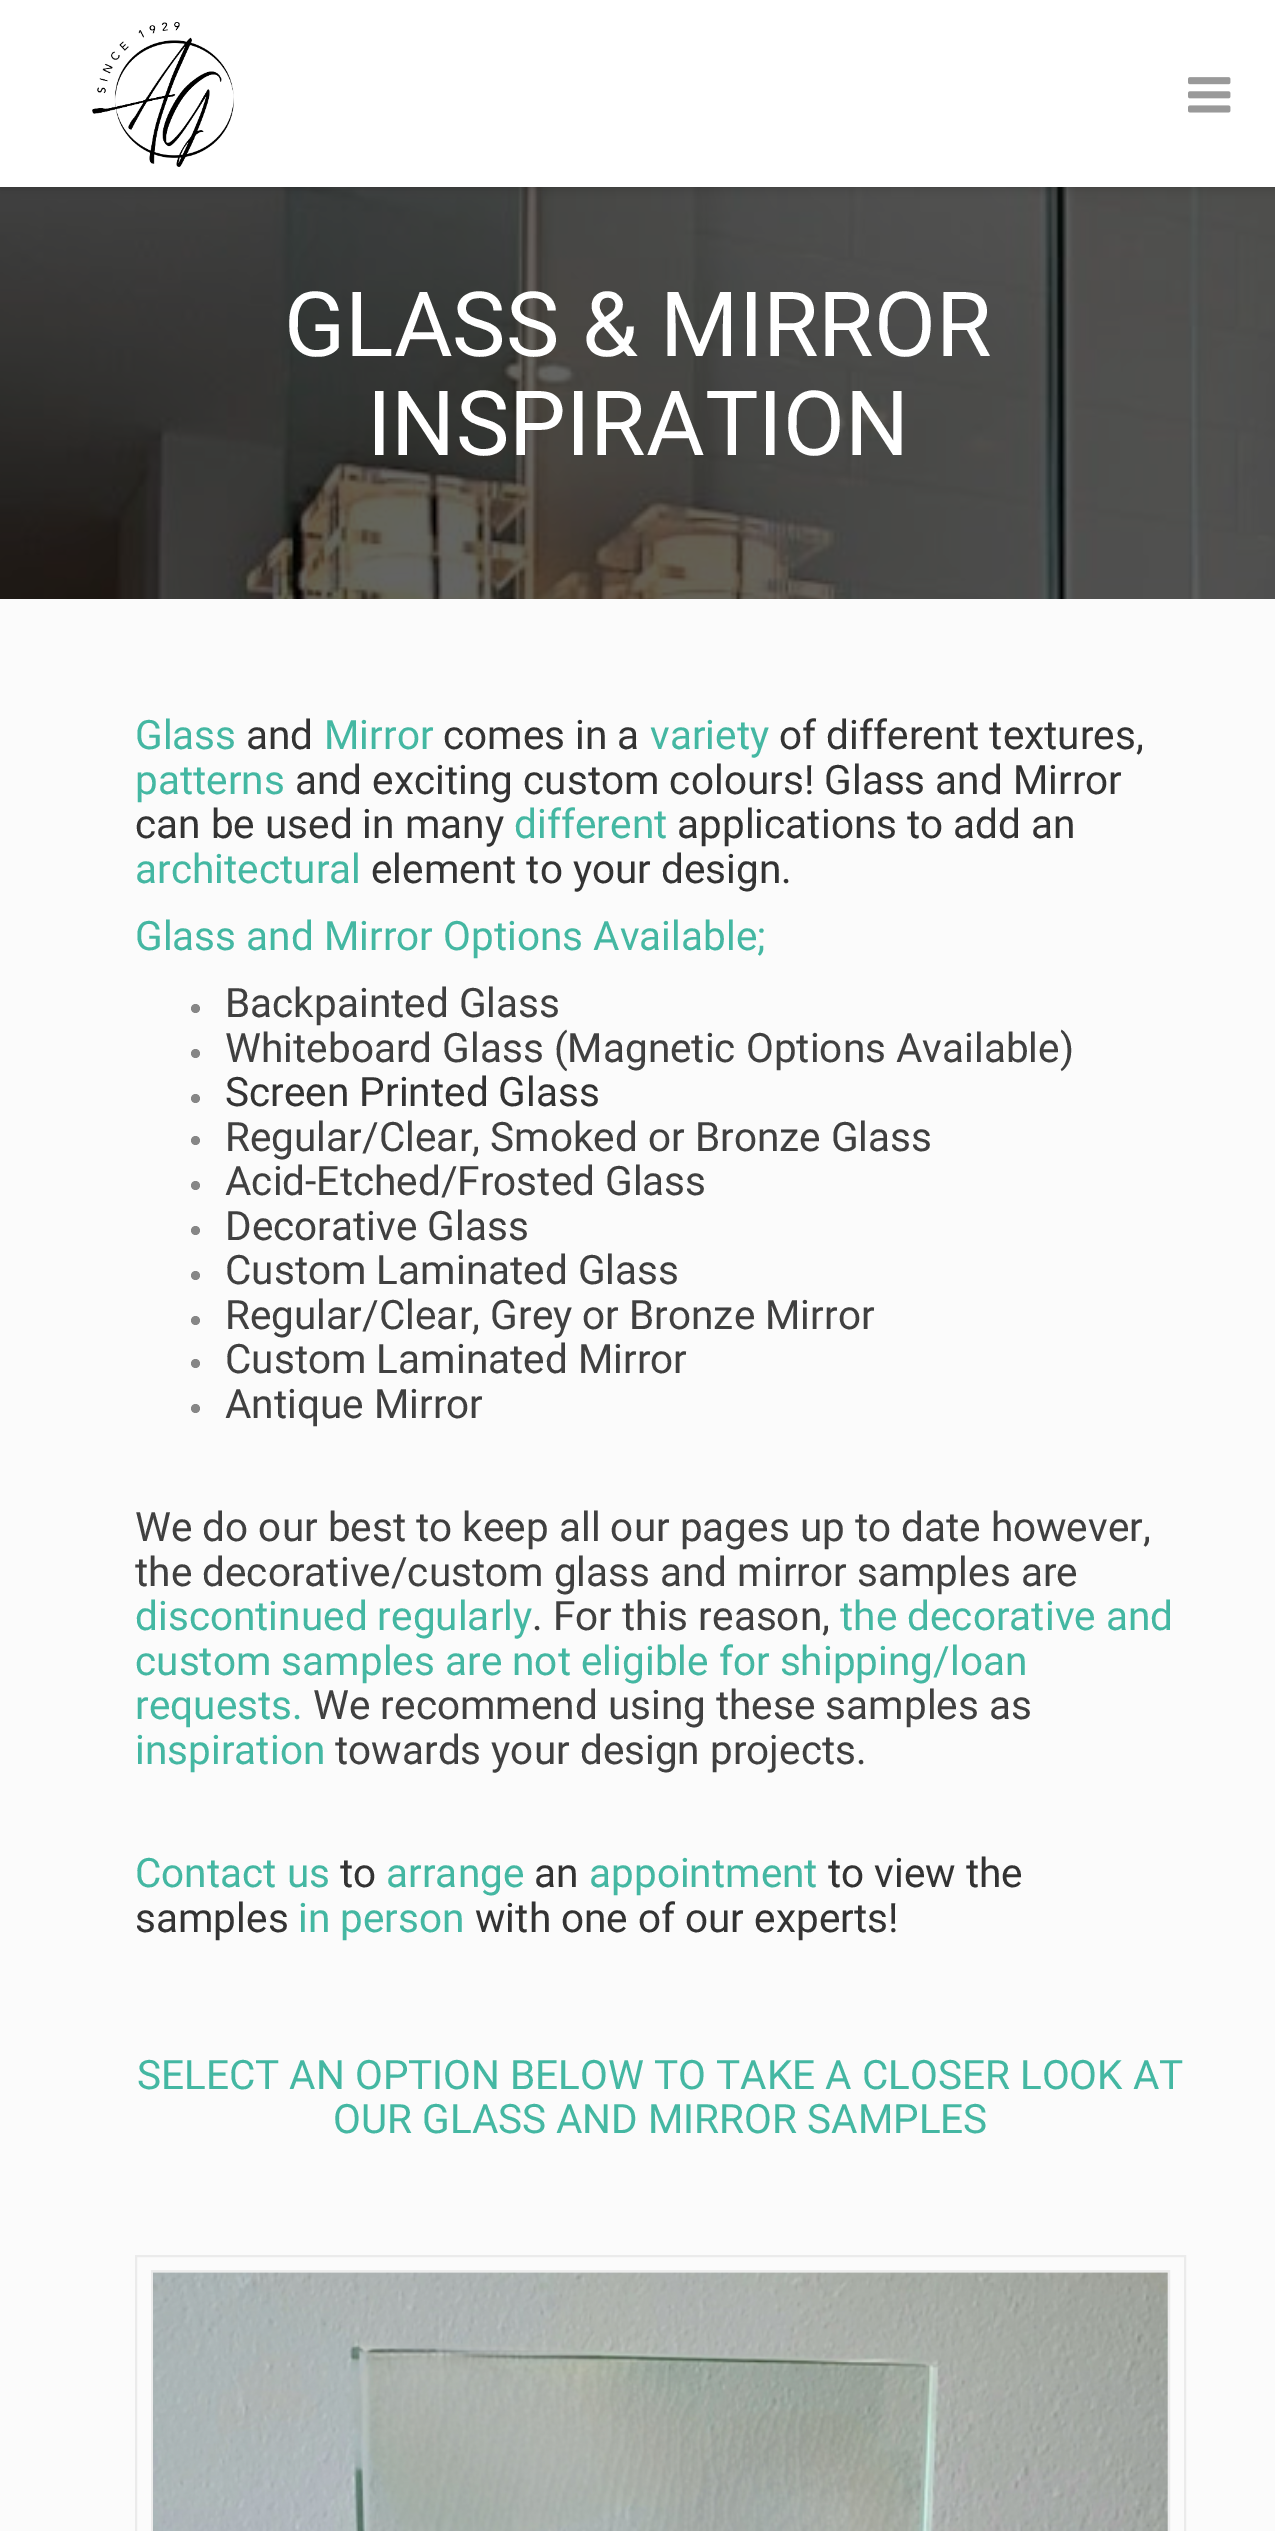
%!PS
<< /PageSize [1275 2531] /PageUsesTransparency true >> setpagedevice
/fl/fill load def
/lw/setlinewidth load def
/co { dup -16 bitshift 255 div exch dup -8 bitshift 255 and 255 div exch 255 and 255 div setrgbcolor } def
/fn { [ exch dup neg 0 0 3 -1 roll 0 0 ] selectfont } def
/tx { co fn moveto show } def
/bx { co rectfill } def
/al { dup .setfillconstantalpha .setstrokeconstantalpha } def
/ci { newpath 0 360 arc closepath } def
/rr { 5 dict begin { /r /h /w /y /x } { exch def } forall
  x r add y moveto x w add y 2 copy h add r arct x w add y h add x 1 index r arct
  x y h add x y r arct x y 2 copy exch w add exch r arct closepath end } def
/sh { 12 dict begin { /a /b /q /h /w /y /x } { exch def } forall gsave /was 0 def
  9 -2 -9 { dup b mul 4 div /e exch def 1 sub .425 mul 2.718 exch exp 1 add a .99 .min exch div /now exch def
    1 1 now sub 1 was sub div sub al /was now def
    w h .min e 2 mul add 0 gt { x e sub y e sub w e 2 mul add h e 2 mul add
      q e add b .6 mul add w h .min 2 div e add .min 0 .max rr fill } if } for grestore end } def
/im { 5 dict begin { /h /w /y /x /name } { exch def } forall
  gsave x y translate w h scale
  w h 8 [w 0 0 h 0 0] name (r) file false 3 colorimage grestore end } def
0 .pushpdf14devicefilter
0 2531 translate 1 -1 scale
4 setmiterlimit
0 0 1275 2531 16#FBFBFB bx
(media/3.raw) 0 187 1275 412 im
16#000000 co
0 0 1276 187 0 5.5 .19 sh
0 0 1275 187 16#FFFFFF bx
(media/1.raw) 92 22 142 145 im
(media/2.raw) 1188 77 43 36 im
16#868686 co
195.5 1008.5 4.5 ci fl
195.5 1053.5 4.5 ci fl
195.5 1098.5 4.5 ci fl
195.5 1140.5 4.5 ci fl
195.5 1185.5 4.5 ci fl
195.5 1230.5 4.5 ci fl
195.5 1275.5 4.5 ci fl
195.5 1320.5 4.5 ci fl
195.5 1363.5 4.5 ci fl
195.5 1408.5 4.5 ci fl
16#EBEBEB co
2 lw
136 2256 1049 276 rectstroke
152 2271 1017 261 rectstroke
(media/4.raw) 153 2272 1015 259 im
(GLASS & MIRROR) 284 356 /Roboto-Regular 90 16#FFFFFF tx
(INSPIRATION) 367 455 /Roboto-Regular 90 16#FFFFFF tx
(Glass) 135 749 /Roboto-Regular 40.5 16#44B7A2 tx
(and) 246 749 /Roboto-Regular 40.5 16#333333 tx
(Mirror) 324 749 /Roboto-Regular 40.5 16#44B7A2 tx
(comes in a) 443 749 /Roboto-Regular 40.5 16#333333 tx
(variety) 650 749 /Roboto-Regular 40.5 16#44B7A2 tx
(of different textures,) 779 749 /Roboto-Regular 40.5 16#333333 tx
(patterns) 135 794 /Roboto-Regular 40.5 16#44B7A2 tx
(and exciting custom colours! Glass and Mirror) 295 794 /Roboto-Regular 40.5 16#333333 tx
(can be used in many) 135 838 /Roboto-Regular 40.5 16#333333 tx
(different) 514 838 /Roboto-Regular 40.5 16#44B7A2 tx
(applications to add an) 677 838 /Roboto-Regular 40.5 16#333333 tx
(architectural) 135 883 /Roboto-Regular 40.5 16#44B7A2 tx
(element to your design.) 371 883 /Roboto-Regular 40.5 16#333333 tx
(Glass and Mirror Options Available;) 135 950 /Roboto-Regular 40.5 16#44B7A2 tx
(Backpainted Glass) 225 1017 /Roboto-Regular 40.5 16#404040 tx
(Whiteboard Glass \(Magnetic Options Available\)) 225 1062 /Roboto-Regular 40.5 16#404040 tx
(Screen Printed Glass) 225 1106 /Roboto-Regular 40.5 16#333333 tx
(Regular/Clear, Smoked or Bronze Glass) 225 1151 /Roboto-Regular 40.5 16#404040 tx
(Acid-Etched/Frosted Glass) 225 1195 /Roboto-Regular 40.5 16#404040 tx
(Decorative Glass) 225 1240 /Roboto-Regular 40.5 16#404040 tx
(Custom Laminated Glass) 225 1284 /Roboto-Regular 40.5 16#404040 tx
(Regular/Clear, Grey or Bronze Mirror) 225 1329 /Roboto-Regular 40.5 16#404040 tx
(Custom Laminated Mirror) 225 1373 /Roboto-Regular 40.5 16#404040 tx
(Antique Mirror) 225 1418 /Roboto-Regular 40.5 16#404040 tx
(We do our best to keep all our pages up to date however,) 135 1541 /Roboto-Regular 40.5 16#404040 tx
(the decorative/custom glass and mirror samples are) 135 1586 /Roboto-Regular 40.5 16#404040 tx
(discontinued regularly) 135 1630 /Roboto-Regular 40.5 16#44B7A2 tx
(. For this reason,) 532 1630 /Roboto-Regular 40.5 16#404040 tx
(the decorative and) 840 1630 /Roboto-Regular 40.5 16#44B7A2 tx
(custom samples are not eligible for shipping/loan) 135 1675 /Roboto-Regular 40.5 16#44B7A2 tx
(requests.) 135 1719 /Roboto-Regular 40.5 16#44B7A2 tx
(We recommend using these samples as) 313 1719 /Roboto-Regular 40.5 16#404040 tx
(inspiration) 135 1764 /Roboto-Regular 40.5 16#44B7A2 tx
(towards your design projects.) 335 1764 /Roboto-Regular 40.5 16#404040 tx
(Contact us) 135 1887 /Roboto-Regular 40.5 16#44B7A2 tx
(to) 340 1887 /Roboto-Regular 40.5 16#333333 tx
(arrange) 386 1887 /Roboto-Regular 40.5 16#44B7A2 tx
(an) 534 1887 /Roboto-Regular 40.5 16#333333 tx
(appointment) 589 1887 /Roboto-Regular 40.5 16#44B7A2 tx
(to view the) 828 1887 /Roboto-Regular 40.5 16#333333 tx
(samples) 135 1932 /Roboto-Regular 40.5 16#333333 tx
(in person) 298 1932 /Roboto-Regular 40.5 16#44B7A2 tx
(with one of our experts!) 475 1932 /Roboto-Regular 40.5 16#333333 tx
(SELECT AN OPTION BELOW TO TAKE A CLOSER LOOK AT) 137 2089 /Roboto-Regular 40.5 16#44B7A2 tx
(OUR GLASS AND MIRROR SAMPLES) 333 2133 /Roboto-Regular 40.5 16#44B7A2 tx
.poppdf14devicefilter showpage
